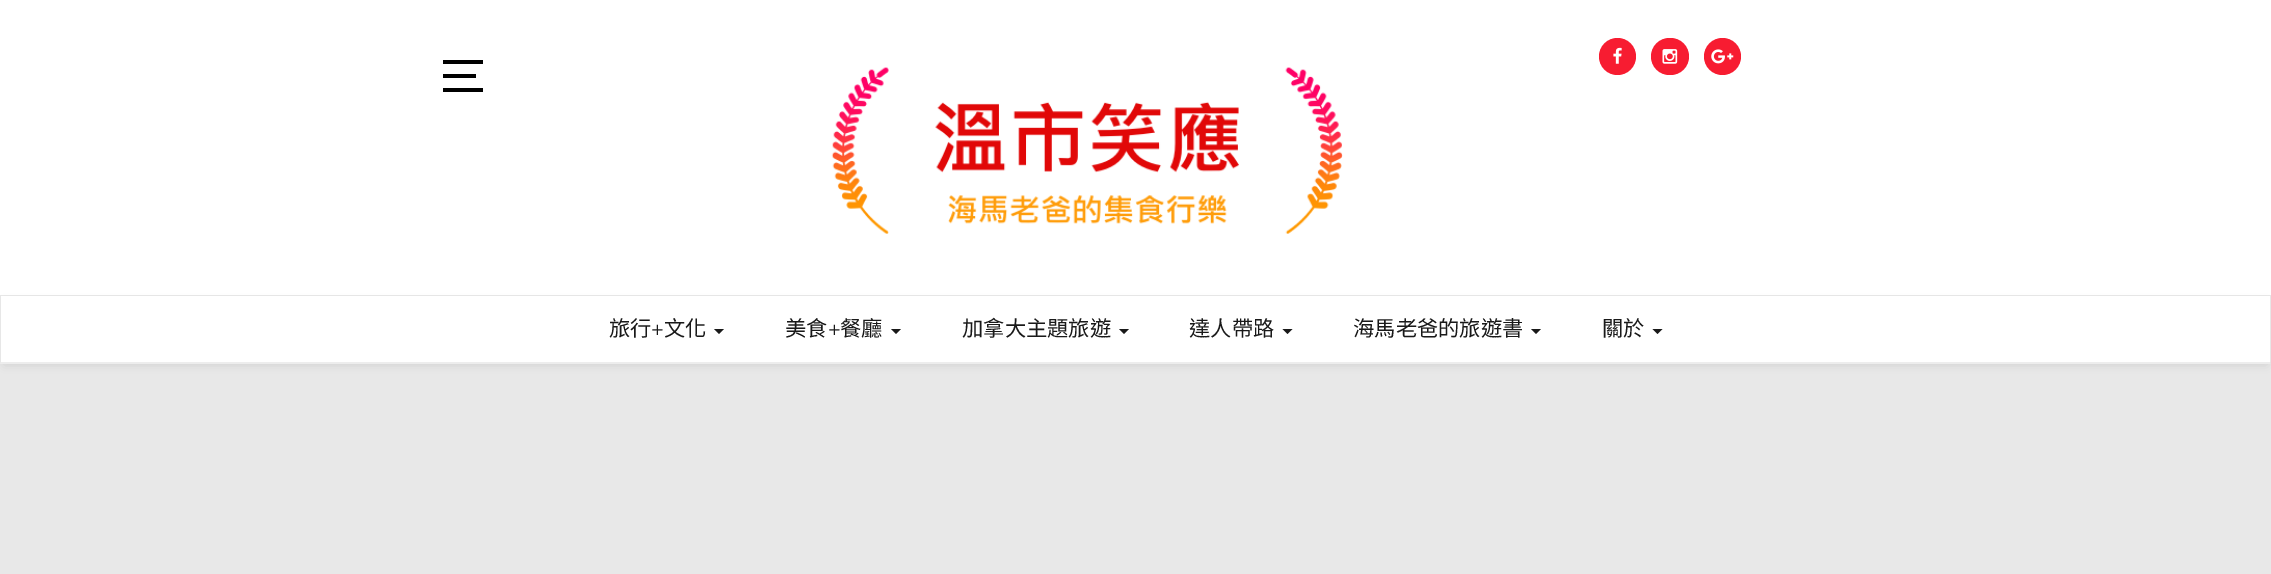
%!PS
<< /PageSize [2271 574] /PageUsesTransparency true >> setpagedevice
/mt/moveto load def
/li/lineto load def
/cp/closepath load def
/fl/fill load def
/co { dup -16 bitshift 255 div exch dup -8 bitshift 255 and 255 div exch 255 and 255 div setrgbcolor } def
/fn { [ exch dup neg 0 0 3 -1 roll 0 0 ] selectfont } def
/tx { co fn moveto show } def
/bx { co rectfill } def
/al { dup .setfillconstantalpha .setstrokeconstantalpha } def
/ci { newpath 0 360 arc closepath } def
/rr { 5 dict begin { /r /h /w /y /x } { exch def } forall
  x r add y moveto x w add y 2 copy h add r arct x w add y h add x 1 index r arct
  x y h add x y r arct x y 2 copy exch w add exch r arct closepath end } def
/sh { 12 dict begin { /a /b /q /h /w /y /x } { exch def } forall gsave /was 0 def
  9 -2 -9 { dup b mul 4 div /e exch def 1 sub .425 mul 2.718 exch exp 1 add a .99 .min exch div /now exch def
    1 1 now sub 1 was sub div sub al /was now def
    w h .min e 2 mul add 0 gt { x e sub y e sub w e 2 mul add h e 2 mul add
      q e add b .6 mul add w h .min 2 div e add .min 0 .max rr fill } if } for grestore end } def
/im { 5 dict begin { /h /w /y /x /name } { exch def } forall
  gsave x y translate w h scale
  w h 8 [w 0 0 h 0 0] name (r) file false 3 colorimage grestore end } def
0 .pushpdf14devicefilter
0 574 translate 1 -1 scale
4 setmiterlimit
0 0 2271 574 16#E8E8E8 bx
0 0 2271 295 16#FFFFFF bx
443 74 33 4 16#000000 bx
443 60 40 4 16#000000 bx
443 88 40 4 16#000000 bx
(media/1.raw) 831 67 512 167 im
16#F71C31 co
1617.5 56.5 18.5 ci fl
(media/2.raw) 1613 47 9 17 im
1651 38 38 37 18.5 rr fl
(media/3.raw) 1662 49 16 15 im
1722.5 56.5 18.5 ci fl
(media/4.raw) 1711 49 23 15 im
16#000000 co
5 304 2261 59 0 5 .15 sh
0 296 2271 68 16#FFFFFF bx
16#E7E7E7 co
2271 295 mt 2271 364 li 2270 362 li 2270 296 li cp fl
0.07 al
16#000000 co
2271 364 mt 0 364 li 1 362 li 2270 362 li cp fl
1 al
16#E7E7E7 co
0 364 mt 0 295 li 1 296 li 1 362 li cp fl
16#191919 co
714 329 mt 724 329 li 719 334 li cp fl
891 329 mt 901 329 li 896 334 li cp fl
1119 329 mt 1129 329 li 1124 334 li cp fl
1282.5 329 mt 1292.5 329 li 1287.5 334 li cp fl
1531 329 mt 1541 329 li 1536 334 li cp fl
1652.5 329 mt 1662.5 329 li 1657.5 334 li cp fl
(旅行) 609 336 /NotoSansCJKTC-Regular 21.25 16#191919 tx
(+) 651 336 /Muli-Regular 21.25 16#191919 tx
(文化) 664 336 /NotoSansCJKTC-Regular 21.25 16#191919 tx
(美食) 785 336 /NotoSansCJKTC-Regular 21.25 16#191919 tx
(+) 828 336 /Muli-Regular 21.25 16#191919 tx
(餐廳) 840 336 /NotoSansCJKTC-Regular 21.25 16#191919 tx
(加拿大主題旅遊) 962 336 /NotoSansCJKTC-Regular 21.25 16#191919 tx
(達人帶路) 1189 336 /NotoSansCJKTC-Regular 21.25 16#191919 tx
(海馬老爸的旅遊書) 1353 336 /NotoSansCJKTC-Regular 21.25 16#191919 tx
(關於) 1602 336 /NotoSansCJKTC-Regular 21.25 16#191919 tx
.poppdf14devicefilter showpage
